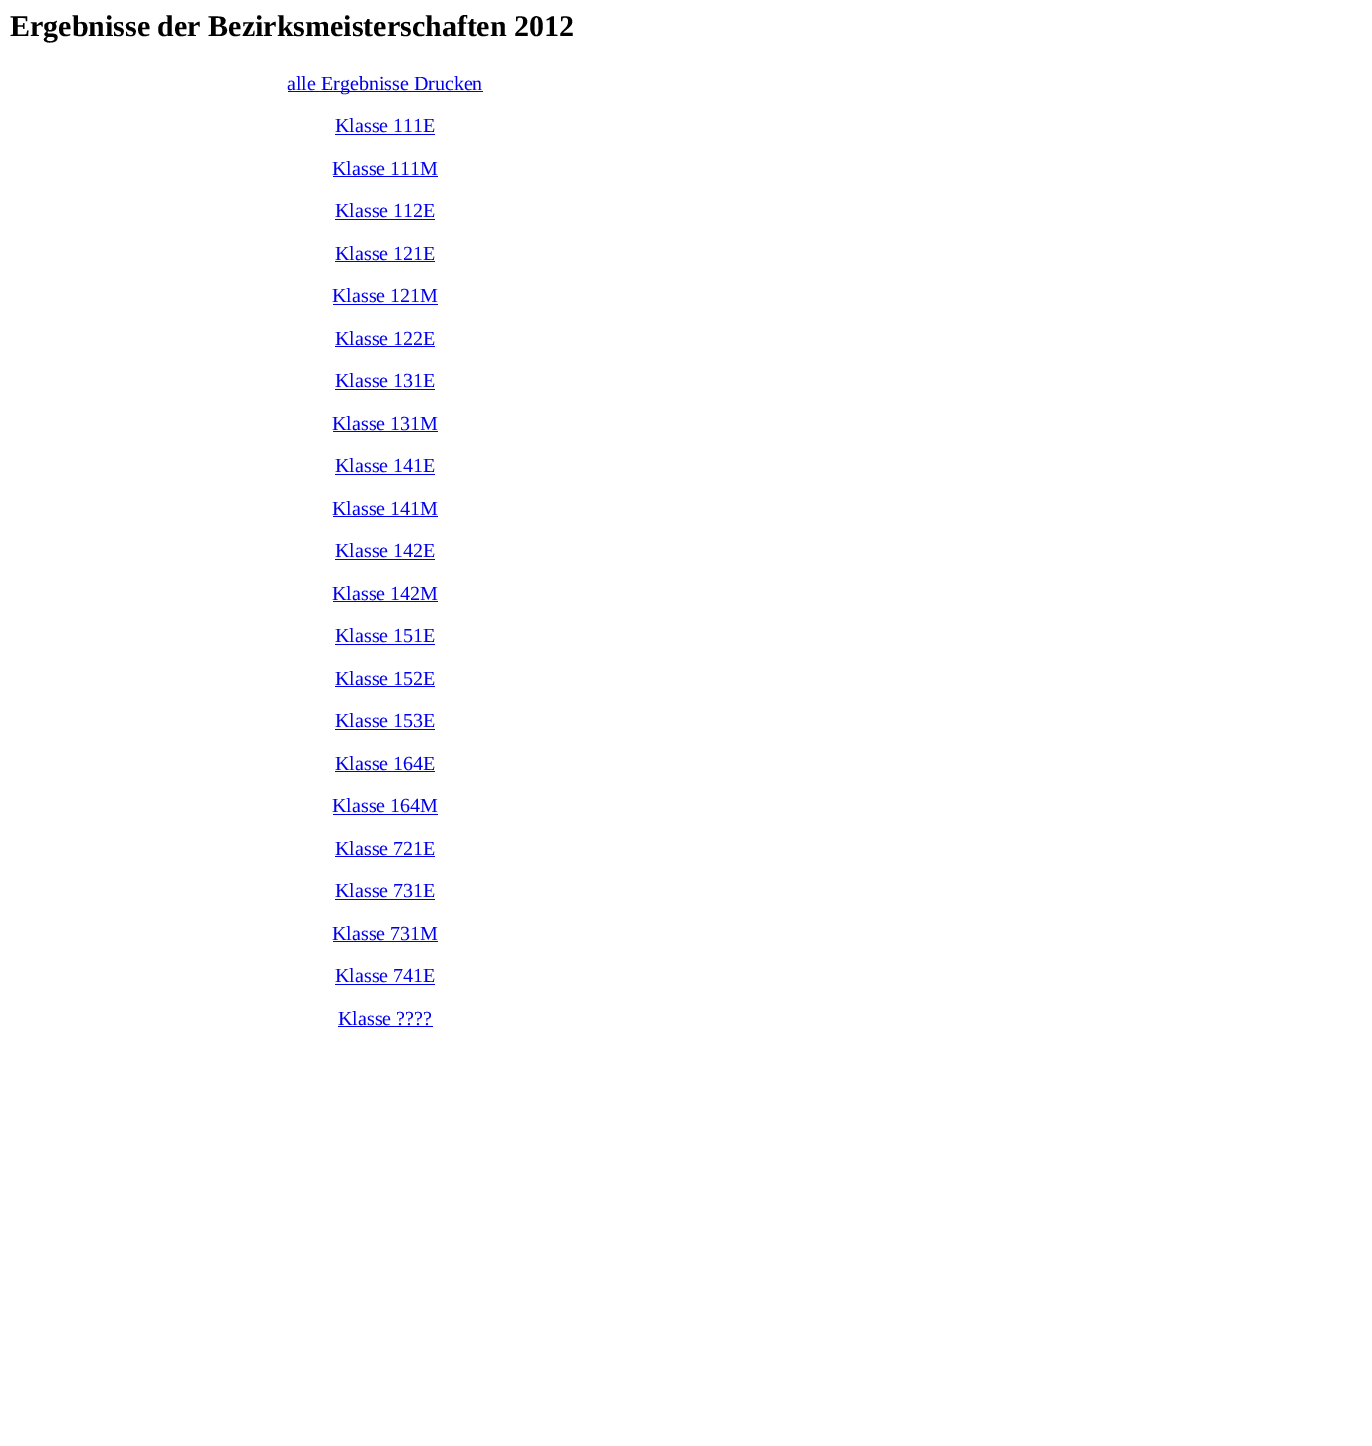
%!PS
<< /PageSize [1372 1446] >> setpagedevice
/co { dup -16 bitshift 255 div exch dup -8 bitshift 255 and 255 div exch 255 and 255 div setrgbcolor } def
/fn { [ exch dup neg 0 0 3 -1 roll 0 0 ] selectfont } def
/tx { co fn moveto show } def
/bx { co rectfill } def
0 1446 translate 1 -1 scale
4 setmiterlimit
0 0 1372 1446 16#FFFFFF bx
288 91 195 1 16#0000EE bx
335 134 100 1 16#0000EE bx
333 176 105 1 16#0000EE bx
335 219 100 1 16#0000EE bx
335 261 100 1 16#0000EE bx
333 304 105 1 16#0000EE bx
335 346 100 1 16#0000EE bx
335 389 100 1 16#0000EE bx
333 431 105 1 16#0000EE bx
335 474 100 1 16#0000EE bx
333 516 105 1 16#0000EE bx
335 559 100 1 16#0000EE bx
333 601 105 1 16#0000EE bx
335 644 100 1 16#0000EE bx
335 686 100 1 16#0000EE bx
335 729 100 1 16#0000EE bx
335 771 100 1 16#0000EE bx
333 814 105 1 16#0000EE bx
335 856 100 1 16#0000EE bx
335 899 100 1 16#0000EE bx
333 941 105 1 16#0000EE bx
335 984 100 1 16#0000EE bx
338 1026 95 1 16#0000EE bx
(Ergebnisse der Bezirksmeisterschaften 2012) 10 36 /LiberationSerif-Bold 30 16#000000 tx
(alle Ergebnisse Drucken) 287 90 /LiberationSerif-Regular 20 16#0000EE tx
(Klasse 111E) 335 132 /LiberationSerif-Regular 20 16#0000EE tx
(Klasse 111M) 332 175 /LiberationSerif-Regular 20 16#0000EE tx
(Klasse 112E) 335 217 /LiberationSerif-Regular 20 16#0000EE tx
(Klasse 121E) 335 260 /LiberationSerif-Regular 20 16#0000EE tx
(Klasse 121M) 332 302 /LiberationSerif-Regular 20 16#0000EE tx
(Klasse 122E) 335 345 /LiberationSerif-Regular 20 16#0000EE tx
(Klasse 131E) 335 387 /LiberationSerif-Regular 20 16#0000EE tx
(Klasse 131M) 332 430 /LiberationSerif-Regular 20 16#0000EE tx
(Klasse 141E) 335 472 /LiberationSerif-Regular 20 16#0000EE tx
(Klasse 141M) 332 515 /LiberationSerif-Regular 20 16#0000EE tx
(Klasse 142E) 335 557 /LiberationSerif-Regular 20 16#0000EE tx
(Klasse 142M) 332 600 /LiberationSerif-Regular 20 16#0000EE tx
(Klasse 151E) 335 642 /LiberationSerif-Regular 20 16#0000EE tx
(Klasse 152E) 335 685 /LiberationSerif-Regular 20 16#0000EE tx
(Klasse 153E) 335 727 /LiberationSerif-Regular 20 16#0000EE tx
(Klasse 164E) 335 770 /LiberationSerif-Regular 20 16#0000EE tx
(Klasse 164M) 332 812 /LiberationSerif-Regular 20 16#0000EE tx
(Klasse 721E) 335 855 /LiberationSerif-Regular 20 16#0000EE tx
(Klasse 731E) 335 897 /LiberationSerif-Regular 20 16#0000EE tx
(Klasse 731M) 332 940 /LiberationSerif-Regular 20 16#0000EE tx
(Klasse 741E) 335 982 /LiberationSerif-Regular 20 16#0000EE tx
(Klasse ????) 338 1025 /LiberationSerif-Regular 20 16#0000EE tx
showpage
